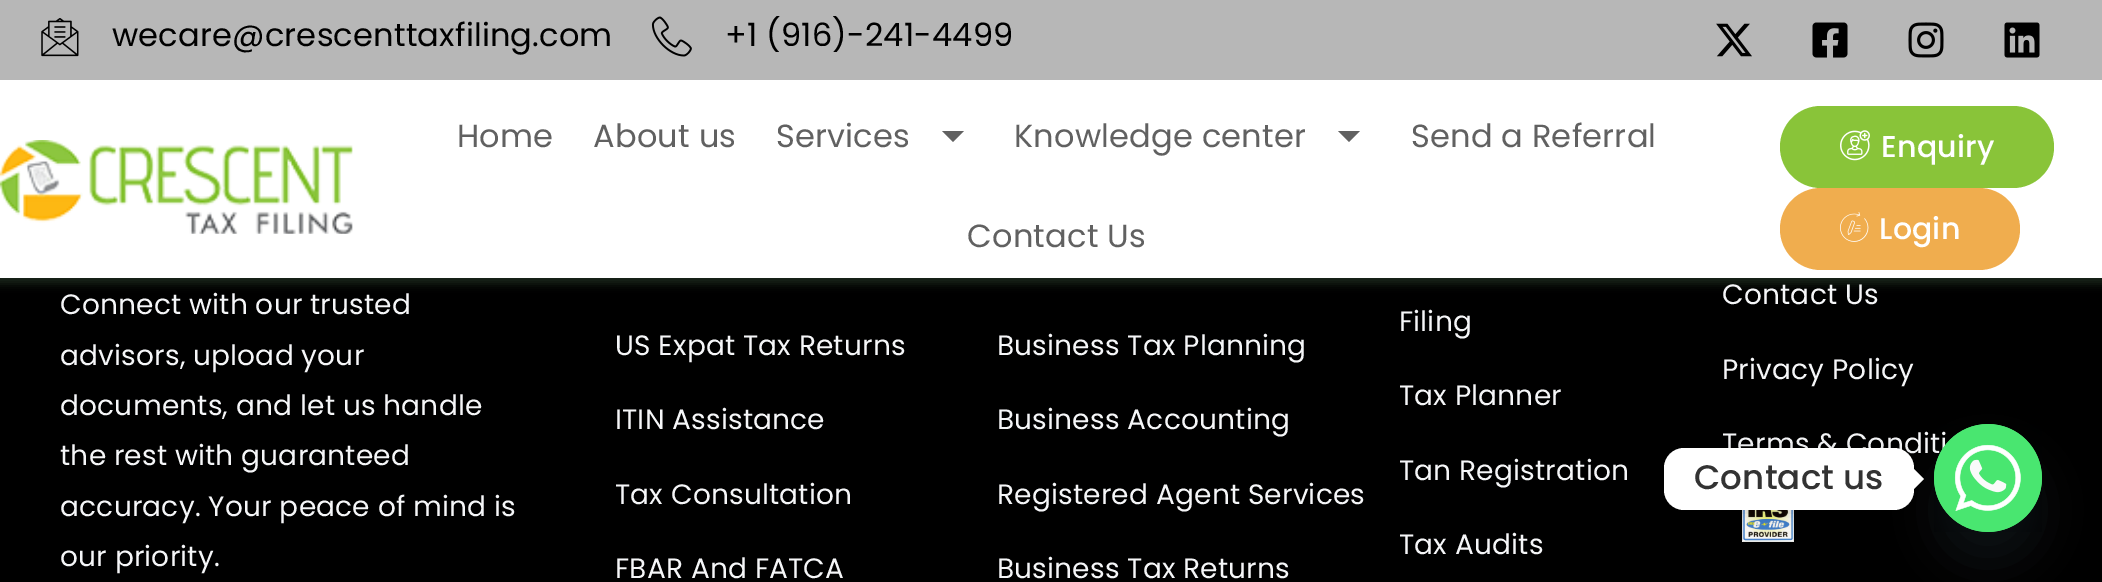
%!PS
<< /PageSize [2102 582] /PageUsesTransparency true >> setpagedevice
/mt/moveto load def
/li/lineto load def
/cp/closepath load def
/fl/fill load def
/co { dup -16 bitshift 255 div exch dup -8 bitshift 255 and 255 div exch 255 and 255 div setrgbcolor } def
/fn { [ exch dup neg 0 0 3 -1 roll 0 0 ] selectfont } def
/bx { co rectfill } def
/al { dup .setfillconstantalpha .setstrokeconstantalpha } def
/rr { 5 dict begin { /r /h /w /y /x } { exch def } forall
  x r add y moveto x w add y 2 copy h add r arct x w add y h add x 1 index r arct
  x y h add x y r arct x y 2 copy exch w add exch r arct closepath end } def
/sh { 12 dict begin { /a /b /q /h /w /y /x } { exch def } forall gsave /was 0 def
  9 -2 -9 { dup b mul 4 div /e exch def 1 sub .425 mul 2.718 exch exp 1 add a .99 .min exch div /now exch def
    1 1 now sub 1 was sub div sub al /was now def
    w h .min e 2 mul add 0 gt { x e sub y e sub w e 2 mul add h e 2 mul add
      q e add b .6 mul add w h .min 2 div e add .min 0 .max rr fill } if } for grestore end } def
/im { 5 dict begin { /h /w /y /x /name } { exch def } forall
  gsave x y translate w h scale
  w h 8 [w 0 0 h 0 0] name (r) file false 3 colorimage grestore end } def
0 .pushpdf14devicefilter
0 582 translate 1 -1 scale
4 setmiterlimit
0 0 2102 582 16#000000 bx
16#598B5D co
-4 -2 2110 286 0 4 .26 sh
0 0 2102 80 16#B7B7B7 bx
(media/1.raw) 41 18 38 39 im
(media/2.raw) 651 16 41 41 im
(media/3.raw) 1716 23 36 34 im
(media/4.raw) 1812 22 36 36 im
(media/5.raw) 1908 22 36 36 im
(media/6.raw) 2004 22 36 36 im
0 80 2102 198 16#FFFFFF bx
(media/7.raw) 0 140 353 94 im
16#616161 co
942 131 mt 964 131 li 953 142 li cp fl
1338 131 mt 1360 131 li 1349 142 li cp fl
16#89C439 co
1780 106 274 82 41 rr fl
(media/8.raw) 1840 130 30 31 im
16#F0AD4E co
1780 188 240 82 41 rr fl
(media/9.raw) 1840 212 29 30 im
(media/10.raw) 1742 510 52 32 im
16#49687E co
1934 456 108 108 54 24 .16 sh
/Poppins-Regular 32 fn
16#000000 co
112 46 mt .2 0 (wecare@crescenttaxfiling.com) ashow
725 46 mt .2 0 (+1 \(916\)-241-4499) ashow
16#616161 co
457 147 mt .2 0 (Home) ashow
593 147 mt .2 0 (About us) ashow
776 147 mt .2 0 (Services) ashow
1014 147 mt .2 0 (Knowledge center) ashow
1411 147 mt .2 0 (Send a Referral) ashow
967 247 mt .2 0 (Contact Us) ashow
/Poppins-Medium 30 fn
16#FFFFFF co
1881 157 mt .2 0 (Enquiry) ashow
1879 239 mt .2 0 (Login) ashow
/Poppins-Regular 28 fn
16#F5F6F8 co
60 314 mt .2 0 (Connect with our trusted) ashow
60 365 mt .2 0 (advisors, upload your) ashow
60 415 mt .2 0 (documents, and let us handle) ashow
60 465 mt .2 0 (the rest with guaranteed) ashow
60 516 mt .2 0 (accuracy. Your peace of mind is) ashow
60 566 mt .2 0 (our priority.) ashow
615 355 mt .2 0 (US Expat Tax Returns) ashow
615 429 mt .2 0 (ITIN Assistance) ashow
615 504 mt .2 0 (Tax Consultation) ashow
615 578 mt .2 0 (FBAR And FATCA) ashow
997 355 mt .2 0 (Business Tax Planning) ashow
997 429 mt .2 0 (Business Accounting) ashow
997 504 mt .2 0 (Registered Agent Services) ashow
997 578 mt .2 0 (Business Tax Returns) ashow
1399 331 mt .2 0 (Filing) ashow
1399 405 mt .2 0 (Tax Planner) ashow
1399 480 mt .2 0 (Tan Registration) ashow
1399 554 mt .2 0 (Tax Audits) ashow
1722 304 mt .2 0 (Contact Us) ashow
1722 379 mt .2 0 (Privacy Policy) ashow
1722 453 mt .2 0 (Terms & Conditi) ashow
(media/11.raw) 1934 424 108 108 im
16#000000 co
1664 450 250 62 20 7.5 .15 sh
16#FFFFFF co
1914 489 mt 1914 469 li 1924 479 li cp fl
1664 448 250 62 20 rr fl
/Poppins-Medium 34 fn
16#333333 co
1694 489 mt .2 0 (Contact us) ashow
.poppdf14devicefilter showpage
